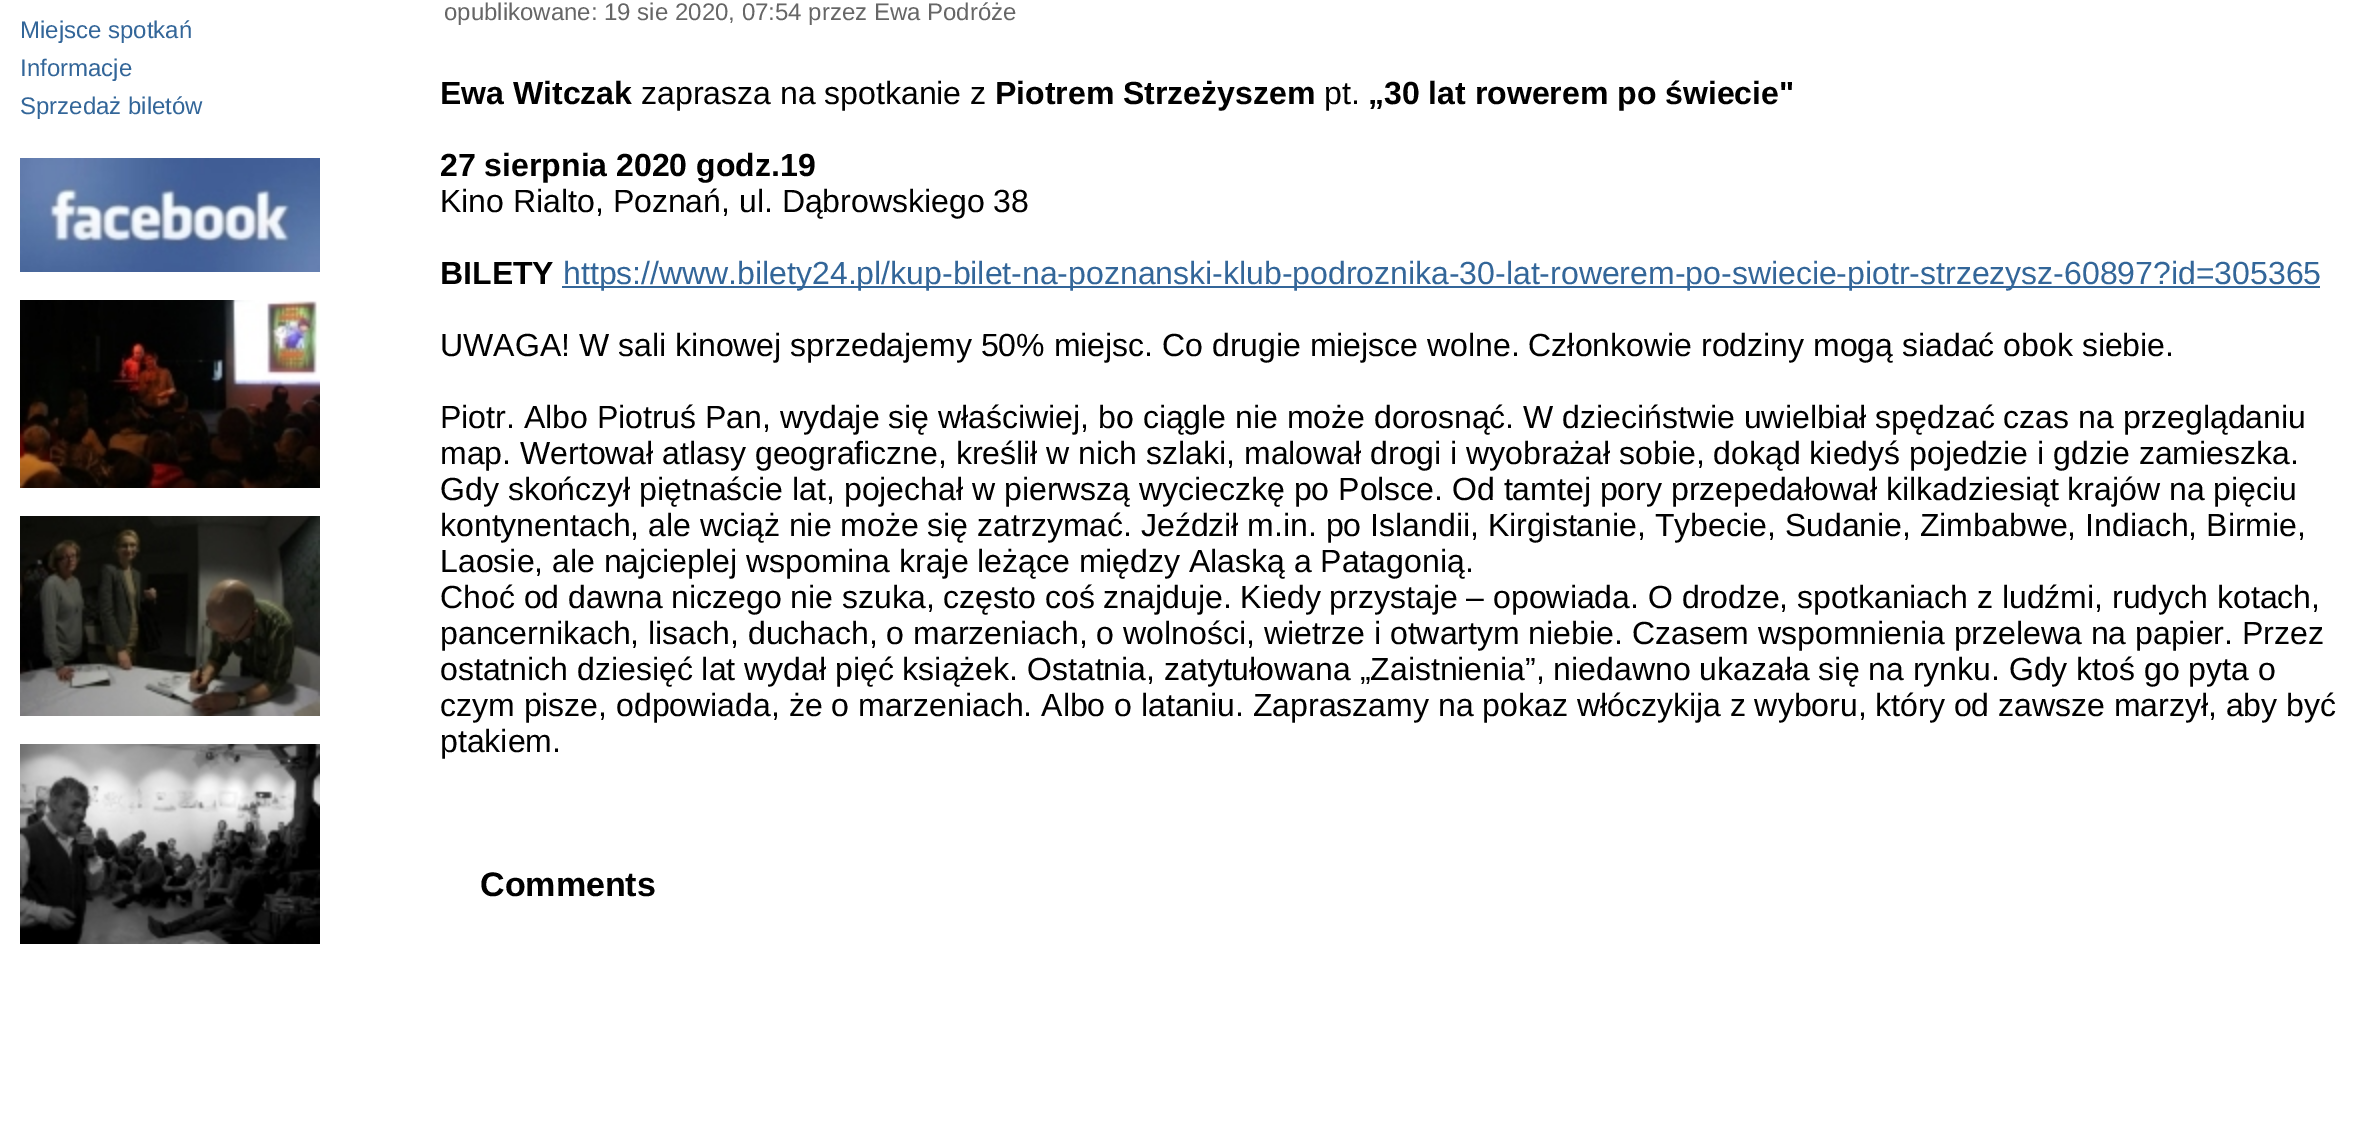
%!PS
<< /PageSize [2370 1130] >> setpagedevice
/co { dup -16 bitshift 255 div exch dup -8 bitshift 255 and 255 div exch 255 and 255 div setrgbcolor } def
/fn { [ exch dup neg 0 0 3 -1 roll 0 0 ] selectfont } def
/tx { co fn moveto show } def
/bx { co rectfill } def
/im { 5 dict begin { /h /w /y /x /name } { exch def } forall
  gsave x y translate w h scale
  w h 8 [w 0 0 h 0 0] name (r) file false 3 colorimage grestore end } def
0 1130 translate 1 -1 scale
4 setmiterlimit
0 0 2370 1130 16#FFFFFF bx
(media/1.raw) 20 158 300 114 im
(media/2.raw) 20 300 300 188 im
(media/3.raw) 20 516 300 200 im
(media/4.raw) 20 744 300 200 im
562 286 1758 2 16#336699 bx
(Miejsce spotkań) 20 38 /LiberationSans-Regular 24 16#336699 tx
(Informacje) 20 76 /LiberationSans-Regular 24 16#336699 tx
(Sprzedaż biletów) 20 114 /LiberationSans-Regular 24 16#336699 tx
(opublikowane: 19 sie 2020, 07:54 przez Ewa Podróże) 444 20 /LiberationSans-Regular 24 16#666666 tx
(Ewa Witczak) 440 104 /LiberationSans-Bold 32 16#000000 tx
(zaprasza na spotkanie z) 641 104 /LiberationSans-Regular 32 16#000000 tx
(Piotrem Strzeżyszem) 995 104 /LiberationSans-Bold 32 16#000000 tx
(pt.) 1324 104 /LiberationSans-Regular 32 16#000000 tx
(„30 lat rowerem po świecie") 1368 104 /LiberationSans-Bold 32 16#000000 tx
(27 sierpnia 2020 godz.19) 440 176 /LiberationSans-Bold 32 16#000000 tx
(Kino Rialto, Poznań, ul. Dąbrowskiego 38) 440 212 /LiberationSans-Regular 32 16#000000 tx
(BILETY) 440 284 /LiberationSans-Bold 32 16#000000 tx
(https://www.bilety24.pl/kup-bilet-na-poznanski-klub-podroznika-30-lat-rowerem-po-swiecie-piotr-strzezysz-60897?id=305365) 563 284 /LiberationSans-Regular 32 16#336699 tx
(UWAGA! W sali kinowej sprzedajemy 50% miejsc. Co drugie miejsce wolne. Członkowie rodziny mogą siadać obok siebie.) 440 356 /LiberationSans-Regular 32 16#000000 tx
(Piotr. Albo Piotruś Pan, wydaje się właściwiej, bo ciągle nie może dorosnąć. W dzieciństwie uwielbiał spędzać czas na przeglądaniu) 440 428 /LiberationSans-Regular 32 16#000000 tx
(map. Wertował atlasy geograficzne, kreślił w nich szlaki, malował drogi i wyobrażał sobie, dokąd kiedyś pojedzie i gdzie zamieszka.) 440 464 /LiberationSans-Regular 32 16#000000 tx
(Gdy skończył piętnaście lat, pojechał w pierwszą wycieczkę po Polsce. Od tamtej pory przepedałował kilkadziesiąt krajów na pięciu) 440 500 /LiberationSans-Regular 32 16#000000 tx
(kontynentach, ale wciąż nie może się zatrzymać. Jeździł m.in. po Islandii, Kirgistanie, Tybecie, Sudanie, Zimbabwe, Indiach, Birmie,) 440 536 /LiberationSans-Regular 32 16#000000 tx
(Laosie, ale najcieplej wspomina kraje leżące między Alaską a Patagonią.) 440 572 /LiberationSans-Regular 32 16#000000 tx
(Choć od dawna niczego nie szuka, często coś znajduje. Kiedy przystaje – opowiada. O drodze, spotkaniach z ludźmi, rudych kotach,) 440 608 /LiberationSans-Regular 32 16#000000 tx
(pancernikach, lisach, duchach, o marzeniach, o wolności, wietrze i otwartym niebie. Czasem wspomnienia przelewa na papier. Przez) 440 644 /LiberationSans-Regular 32 16#000000 tx
(ostatnich dziesięć lat wydał pięć książek. Ostatnia, zatytułowana „Zaistnienia”, niedawno ukazała się na rynku. Gdy ktoś go pyta o) 440 680 /LiberationSans-Regular 32 16#000000 tx
(czym pisze, odpowiada, że o marzeniach. Albo o lataniu. Zapraszamy na pokaz włóczykija z wyboru, który od zawsze marzył, aby być) 440 716 /LiberationSans-Regular 32 16#000000 tx
(ptakiem.) 440 752 /LiberationSans-Regular 32 16#000000 tx
(Comments) 480 896 /LiberationSans-Bold 34 16#000000 tx
showpage
